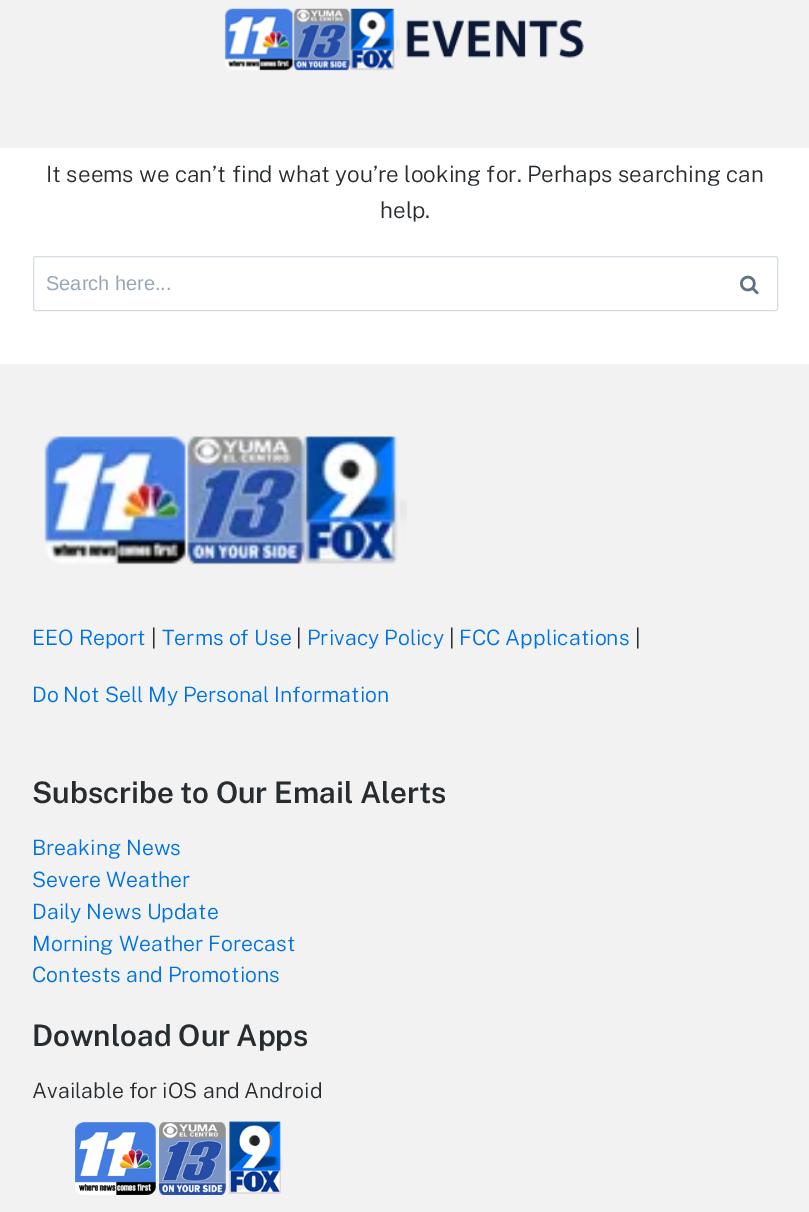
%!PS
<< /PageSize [809 1212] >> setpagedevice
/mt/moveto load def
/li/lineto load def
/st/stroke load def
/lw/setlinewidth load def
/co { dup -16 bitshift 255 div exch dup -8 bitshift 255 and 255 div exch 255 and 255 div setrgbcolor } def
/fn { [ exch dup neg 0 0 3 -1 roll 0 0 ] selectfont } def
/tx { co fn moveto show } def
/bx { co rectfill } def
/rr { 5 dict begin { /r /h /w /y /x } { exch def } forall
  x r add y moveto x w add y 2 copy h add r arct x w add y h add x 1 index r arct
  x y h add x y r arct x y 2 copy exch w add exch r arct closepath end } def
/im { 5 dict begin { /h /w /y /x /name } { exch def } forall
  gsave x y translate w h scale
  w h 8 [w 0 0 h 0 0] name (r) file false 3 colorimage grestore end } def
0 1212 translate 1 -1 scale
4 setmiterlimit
0 0 809 1212 16#FFFFFF bx
0 0 809 148 16#F2F2F2 bx
(media/1.raw) 224 8 360 63 im
16#D4DDE5 co
33.5 256.5 744 54 2 rr st
(media/2.raw) 740 275 19 20 im
0 364 809 848 16#F2F2F2 bx
(media/3.raw) 44 436 363 129 im
16#F6F6F6 co
1.2 lw
[1.25 1.25] 0 setdash
32.5 650.5 mt 146 650.5 li st
161 650.5 mt 291 650.5 li st
307.5 650.5 mt 444 650.5 li st
460 650.5 mt 630 650.5 li st
32.5 860.5 mt 181 860.5 li st
32.5 924.5 mt 219 924.5 li st
32.5 955.5 mt 296 955.5 li st
(media/4.raw) 75 1121 208 74 im
(It seems we can’t find what you’re looking for. Perhaps searching can) 46 182 /PublicSans-Light 22.5 16#272C30 tx
(help.) 380 218 /PublicSans-Light 22.5 16#272C30 tx
(Search here...) 46 290 /LiberationSans-Regular 20 16#97A7B5 tx
(EEO Report) 32 645 /PublicSans-Light 21.25 16#0072E5 tx
(|) 151 645 /PublicSans-Light 21.25 16#272C30 tx
(Terms of Use) 162 645 /PublicSans-Light 21.25 16#0072E5 tx
(|) 296 645 /PublicSans-Light 21.25 16#272C30 tx
(Privacy Policy) 307 645 /PublicSans-Light 21.25 16#0072E5 tx
(|) 449 645 /PublicSans-Light 21.25 16#272C30 tx
(FCC Applications) 459 645 /PublicSans-Light 21.25 16#0072E5 tx
(|) 635 645 /PublicSans-Light 21.25 16#272C30 tx
(Do Not Sell My Personal Information) 32 702 /PublicSans-Light 21.25 16#0072E5 tx
(Subscribe to Our Email Alerts) 32 803 /PublicSans-SemiBold 29.75 16#272C30 tx
(Breaking News) 32 855 /PublicSans-Light 21.25 16#0072E5 tx
(Severe Weather) 32 887 /PublicSans-Light 21.25 16#0072E5 tx
(Daily News Update) 32 919 /PublicSans-Light 21.25 16#0072E5 tx
(Morning Weather Forecast) 32 951 /PublicSans-Light 21.25 16#0072E5 tx
(Contests and Promotions) 32 982 /PublicSans-Light 21.25 16#0072E5 tx
(Download Our Apps) 32 1046 /PublicSans-SemiBold 29.75 16#272C30 tx
(Available for iOS and Android) 32 1098 /PublicSans-Light 21.25 16#272C30 tx
showpage
